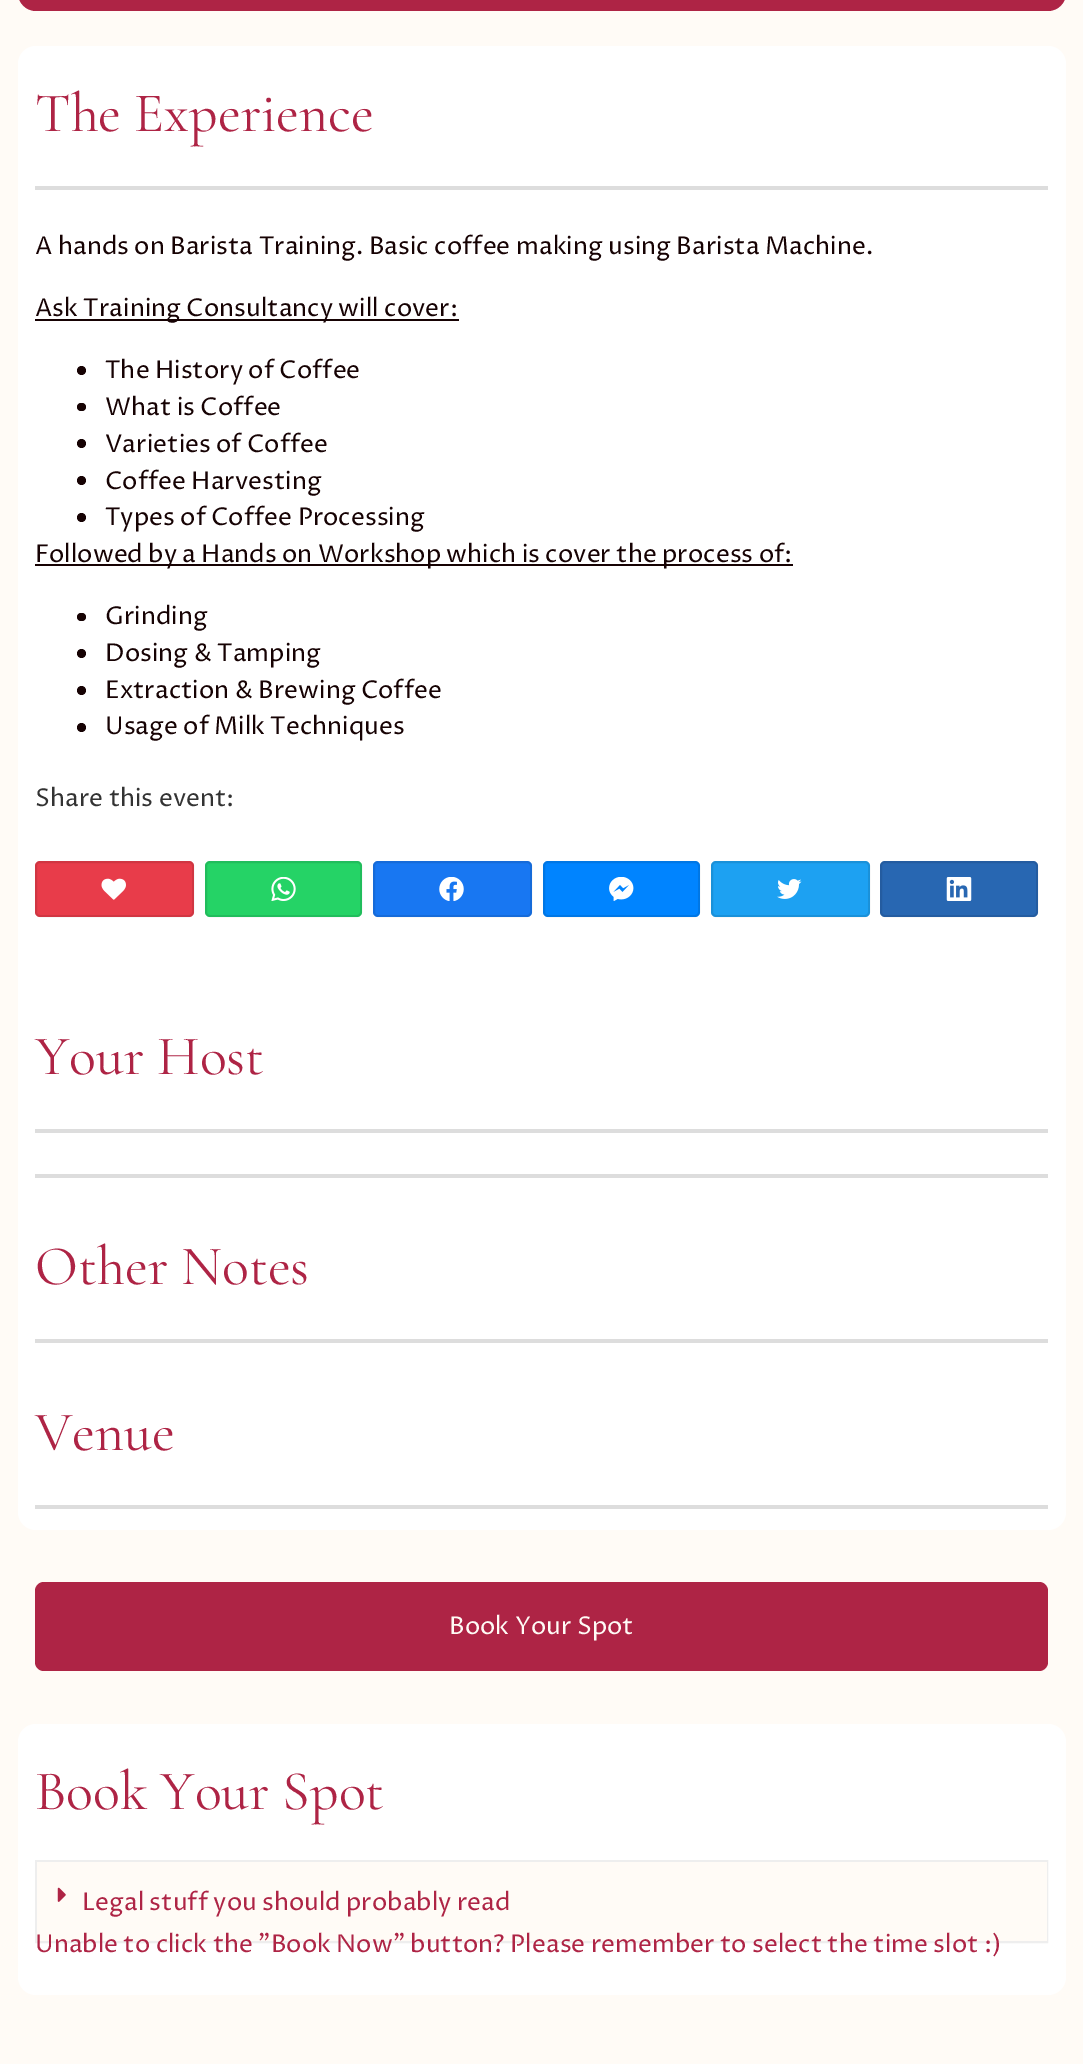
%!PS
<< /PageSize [1083 2064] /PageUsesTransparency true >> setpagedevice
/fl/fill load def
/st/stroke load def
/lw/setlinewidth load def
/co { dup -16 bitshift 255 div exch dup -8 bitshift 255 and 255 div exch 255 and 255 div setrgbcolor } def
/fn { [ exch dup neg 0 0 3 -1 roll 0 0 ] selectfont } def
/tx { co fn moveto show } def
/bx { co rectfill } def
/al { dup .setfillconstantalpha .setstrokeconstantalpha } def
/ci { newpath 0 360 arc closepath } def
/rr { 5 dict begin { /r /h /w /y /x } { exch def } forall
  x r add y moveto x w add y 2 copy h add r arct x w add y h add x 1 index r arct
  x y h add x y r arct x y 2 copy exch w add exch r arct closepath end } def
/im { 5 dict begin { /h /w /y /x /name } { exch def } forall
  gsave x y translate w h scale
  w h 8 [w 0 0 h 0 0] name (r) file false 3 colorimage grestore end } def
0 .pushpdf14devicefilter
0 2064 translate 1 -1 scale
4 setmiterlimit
0 0 1083 2064 16#FFFBF6 bx
16#AE2445 co
18 -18 1048 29 18 rr fl
16#FFFFFF co
18 46 1048 1484 18 rr fl
35 186 1013 4 16#DDDDDD bx
35 319 424 2 16#160203 bx
81.5 370.5 4.5 ci fl
77 403 9 8 4 rr fl
81.5 443.5 4.5 ci fl
81.5 480.5 4.5 ci fl
81.5 517.5 4.5 ci fl
35 564 758 2 16#160203 bx
77 613 9 8 4 rr fl
81.5 653.5 4.5 ci fl
81.5 690.5 4.5 ci fl
81.5 727.5 4.5 ci fl
16#E83C4A co
35 861 159 56 5 rr fl
0.1 al
16#000000 co
2 lw
36 862 157 54 4 rr st
1 al
(media/1.raw) 101 878 25 22 im
16#25D366 co
205 861 157 56 5 rr fl
0.1 al
16#000000 co
206 862 155 54 4 rr st
1 al
(media/2.raw) 271 877 25 24 im
16#1877F2 co
373 861 159 56 5 rr fl
0.1 al
16#000000 co
374 862 157 54 4 rr st
1 al
(media/3.raw) 439 877 25 24 im
16#0084FF co
543 861 157 56 5 rr fl
0.1 al
16#000000 co
544 862 155 54 4 rr st
1 al
(media/4.raw) 609 877 25 24 im
16#1DA1F2 co
711 861 159 56 5 rr fl
0.1 al
16#000000 co
712 862 157 54 4 rr st
1 al
(media/5.raw) 777 879 25 20 im
16#2867B2 co
880 861 158 56 5 rr fl
0.1 al
16#000000 co
881 862 156 54 4 rr st
1 al
(media/6.raw) 946 877 26 24 im
35 1129 1013 4 16#DDDDDD bx
35 1174 1013 4 16#DDDDDD bx
35 1339 1013 4 16#DDDDDD bx
35 1505 1013 4 16#DDDDDD bx
16#AE2445 co
35 1582 1013 89 9 rr fl
16#FFFFFF co
18 1724 1048 271 18 rr fl
16#EEEEEE co
36 1861 1011 81 rectstroke
37 1862 1010 79 16#FFFBF6 bx
(media/7.raw) 57 1887 9 15 im
(The Experience) 35 131 /CormorantGaramond-Regular 56 16#AE2445 tx
(A hands on Barista Training. Basic coffee making using Barista Machine.) 35 254 /ProzaLibre-Regular 24.5 16#160203 tx
(Ask Training Consultancy will cover:) 35 316 /ProzaLibre-Regular 24.5 16#160203 tx
(The History of Coffee) 105 378 /ProzaLibre-Regular 24.5 16#160203 tx
(What is Coffee) 105 415 /ProzaLibre-Regular 24.5 16#160203 tx
(Varieties of Coffee) 105 452 /ProzaLibre-Regular 24.5 16#160203 tx
(Coffee Harvesting) 105 489 /ProzaLibre-Regular 24.5 16#160203 tx
(Types of Coffee Processing) 105 525 /ProzaLibre-Regular 24.5 16#160203 tx
(Followed by a Hands on Workshop which is cover the process of:) 35 562 /ProzaLibre-Regular 24.5 16#160203 tx
(Grinding) 105 624 /ProzaLibre-Regular 24.5 16#160203 tx
(Dosing & Tamping) 105 661 /ProzaLibre-Regular 24.5 16#160203 tx
(Extraction & Brewing Coffee) 105 698 /ProzaLibre-Regular 24.5 16#160203 tx
(Usage of Milk Techniques) 105 734 /ProzaLibre-Regular 24.5 16#160203 tx
(Share this event:) 35 806 /ProzaLibre-Regular 24.5 16#333333 tx
(Your Host) 35 1074 /CormorantGaramond-Regular 56 16#AE2445 tx
(Other Notes) 35 1284 /CormorantGaramond-Regular 56 16#AE2445 tx
(Venue) 35 1450 /CormorantGaramond-Regular 56 16#AE2445 tx
(Book Your Spot) 449 1634 /ProzaLibre-Regular 24.5 16#FFFBF6 tx
(Book Your Spot) 35 1809 /CormorantGaramond-Regular 56 16#AE2445 tx
(Legal stuff you should probably read) 82 1910 /ProzaLibre-Regular 24.5 16#AE2445 tx
(Unable to click the "Book Now" button? Please remember to select the time slot :\)) 35 1952 /ProzaLibre-Regular 24.5 16#AE2445 tx
.poppdf14devicefilter showpage
